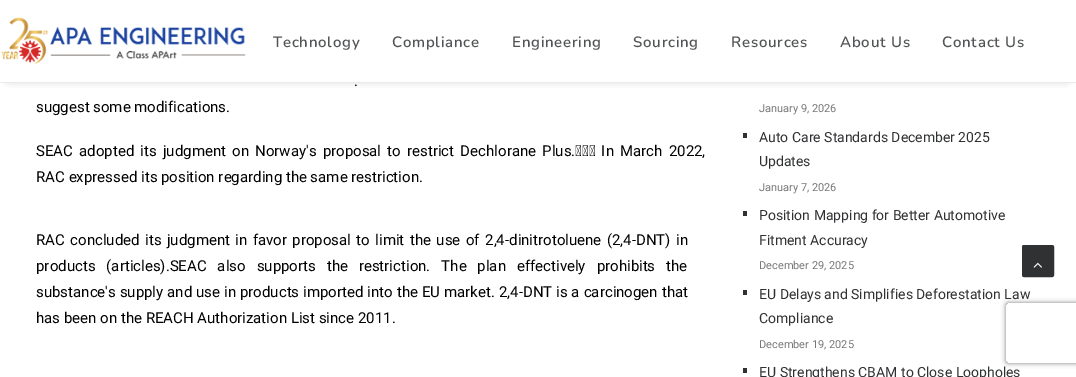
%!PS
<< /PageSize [1076 377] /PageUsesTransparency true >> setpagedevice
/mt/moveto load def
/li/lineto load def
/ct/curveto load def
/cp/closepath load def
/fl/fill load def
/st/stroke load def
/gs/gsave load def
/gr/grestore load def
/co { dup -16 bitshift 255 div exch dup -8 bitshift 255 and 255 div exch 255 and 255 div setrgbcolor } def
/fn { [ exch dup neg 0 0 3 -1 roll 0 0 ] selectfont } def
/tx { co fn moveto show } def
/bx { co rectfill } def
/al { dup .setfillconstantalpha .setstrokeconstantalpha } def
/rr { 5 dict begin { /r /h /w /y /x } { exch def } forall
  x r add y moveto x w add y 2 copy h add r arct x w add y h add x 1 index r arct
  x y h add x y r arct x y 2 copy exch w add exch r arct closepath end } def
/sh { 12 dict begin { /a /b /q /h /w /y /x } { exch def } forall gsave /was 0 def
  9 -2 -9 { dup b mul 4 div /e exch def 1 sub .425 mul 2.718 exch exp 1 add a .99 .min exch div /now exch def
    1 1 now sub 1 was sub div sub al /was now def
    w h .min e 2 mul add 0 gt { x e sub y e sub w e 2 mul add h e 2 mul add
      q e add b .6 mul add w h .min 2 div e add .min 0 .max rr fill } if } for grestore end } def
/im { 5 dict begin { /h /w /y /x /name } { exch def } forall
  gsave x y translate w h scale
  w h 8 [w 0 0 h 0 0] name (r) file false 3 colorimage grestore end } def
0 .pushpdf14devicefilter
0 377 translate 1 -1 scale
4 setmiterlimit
0 0 1076 377 16#FFFFFF bx
16#000000 co
10 14 1056 63 0 5 .6 sh
0 3 1076 79 16#FFFFFF bx
0 82 1076 1 16#EAEAEA bx
(media/1.raw) 1 17 245 47 im
743 133 4 5 16#303133 bx
743 211 4 5 16#303133 bx
743 290 4 5 16#303133 bx
743 368 4 5 16#303133 bx
1022.5 245.5 31 31 1.5 rr gs fl gr
st
(media/2.raw) 1033 262 9 6 im
gs
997 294 mt 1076 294 li 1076 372 li 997 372 li cp 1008 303 mt 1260 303 li 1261 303 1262 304 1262 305 ct 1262 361 li 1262 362 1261 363 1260 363 ct 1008 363 li 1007 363 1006 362 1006 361 ct 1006 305 li 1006 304 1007 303 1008 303 ct cp eoclip newpath
16#808080 co
1006 303 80 60 2 2.5 1 sh
gr
/Nunito-SemiBold 15 fn
16#515354 co
273 47 mt .75 0 (Technology) ashow
392 47 mt .75 0 (Compliance) ashow
512 47 mt .75 0 (Engineering) ashow
633 47 mt .75 0 (Sourcing) ashow
731 47 mt .75 0 (Resources) ashow
840 47 mt .75 0 (About Us) ashow
942 47 mt .75 0 (Contact Us) ashow
/Roboto-Regular 15 fn
16#000000 co
354 86 mt 1 0 32 (.) widthshow
(suggest some modifications.) 36 112 /Roboto-Regular 15 16#000000 tx
36 156 mt 2.5 0 32 (SEAC adopted its judgment on Norway's proposal to restrict Dechlorane Plus.  In March 2022,) widthshow
(RAC expressed its position regarding the same restriction.) 36 182 /Roboto-Regular 15 16#000000 tx
36 245 mt 1.75 0 32 (RAC concluded its judgment in favor proposal to limit the use of 2,4-dinitrotoluene \(2,4-DNT\) in) widthshow
36 271 mt 7.25 0 32 (products \(articles\).SEAC also supports the restriction. The plan effectively prohibits the) widthshow
36 297 mt .25 0 32 (substance's supply and use in products imported into the EU market. 2,4-DNT is a carcinogen that) widthshow
(has been on the REACH Authorization List since 2011.) 36 323 /Roboto-Regular 15 16#000000 tx
(January 9, 2026) 759 112 /Roboto-Regular 11 16#777777 tx
(Auto Care Standards December 2025) 759 142 /Roboto-Regular 14 16#303133 tx
(Updates) 759 166 /Roboto-Regular 14 16#303133 tx
(January 7, 2026) 759 191 /Roboto-Regular 11 16#777777 tx
(Position Mapping for Better Automotive) 759 220 /Roboto-Regular 14 16#303133 tx
(Fitment Accuracy) 759 245 /Roboto-Regular 14 16#303133 tx
(December 29, 2025) 759 269 /Roboto-Regular 11 16#777777 tx
(EU Delays and Simplifies Deforestation Law) 759 299 /Roboto-Regular 14 16#303133 tx
(Compliance) 759 323 /Roboto-Regular 14 16#303133 tx
(December 19, 2025) 759 348 /Roboto-Regular 11 16#777777 tx
(EU Strengthens CBAM to Close Loopholes) 759 377 /Roboto-Regular 14 16#303133 tx
.poppdf14devicefilter showpage
